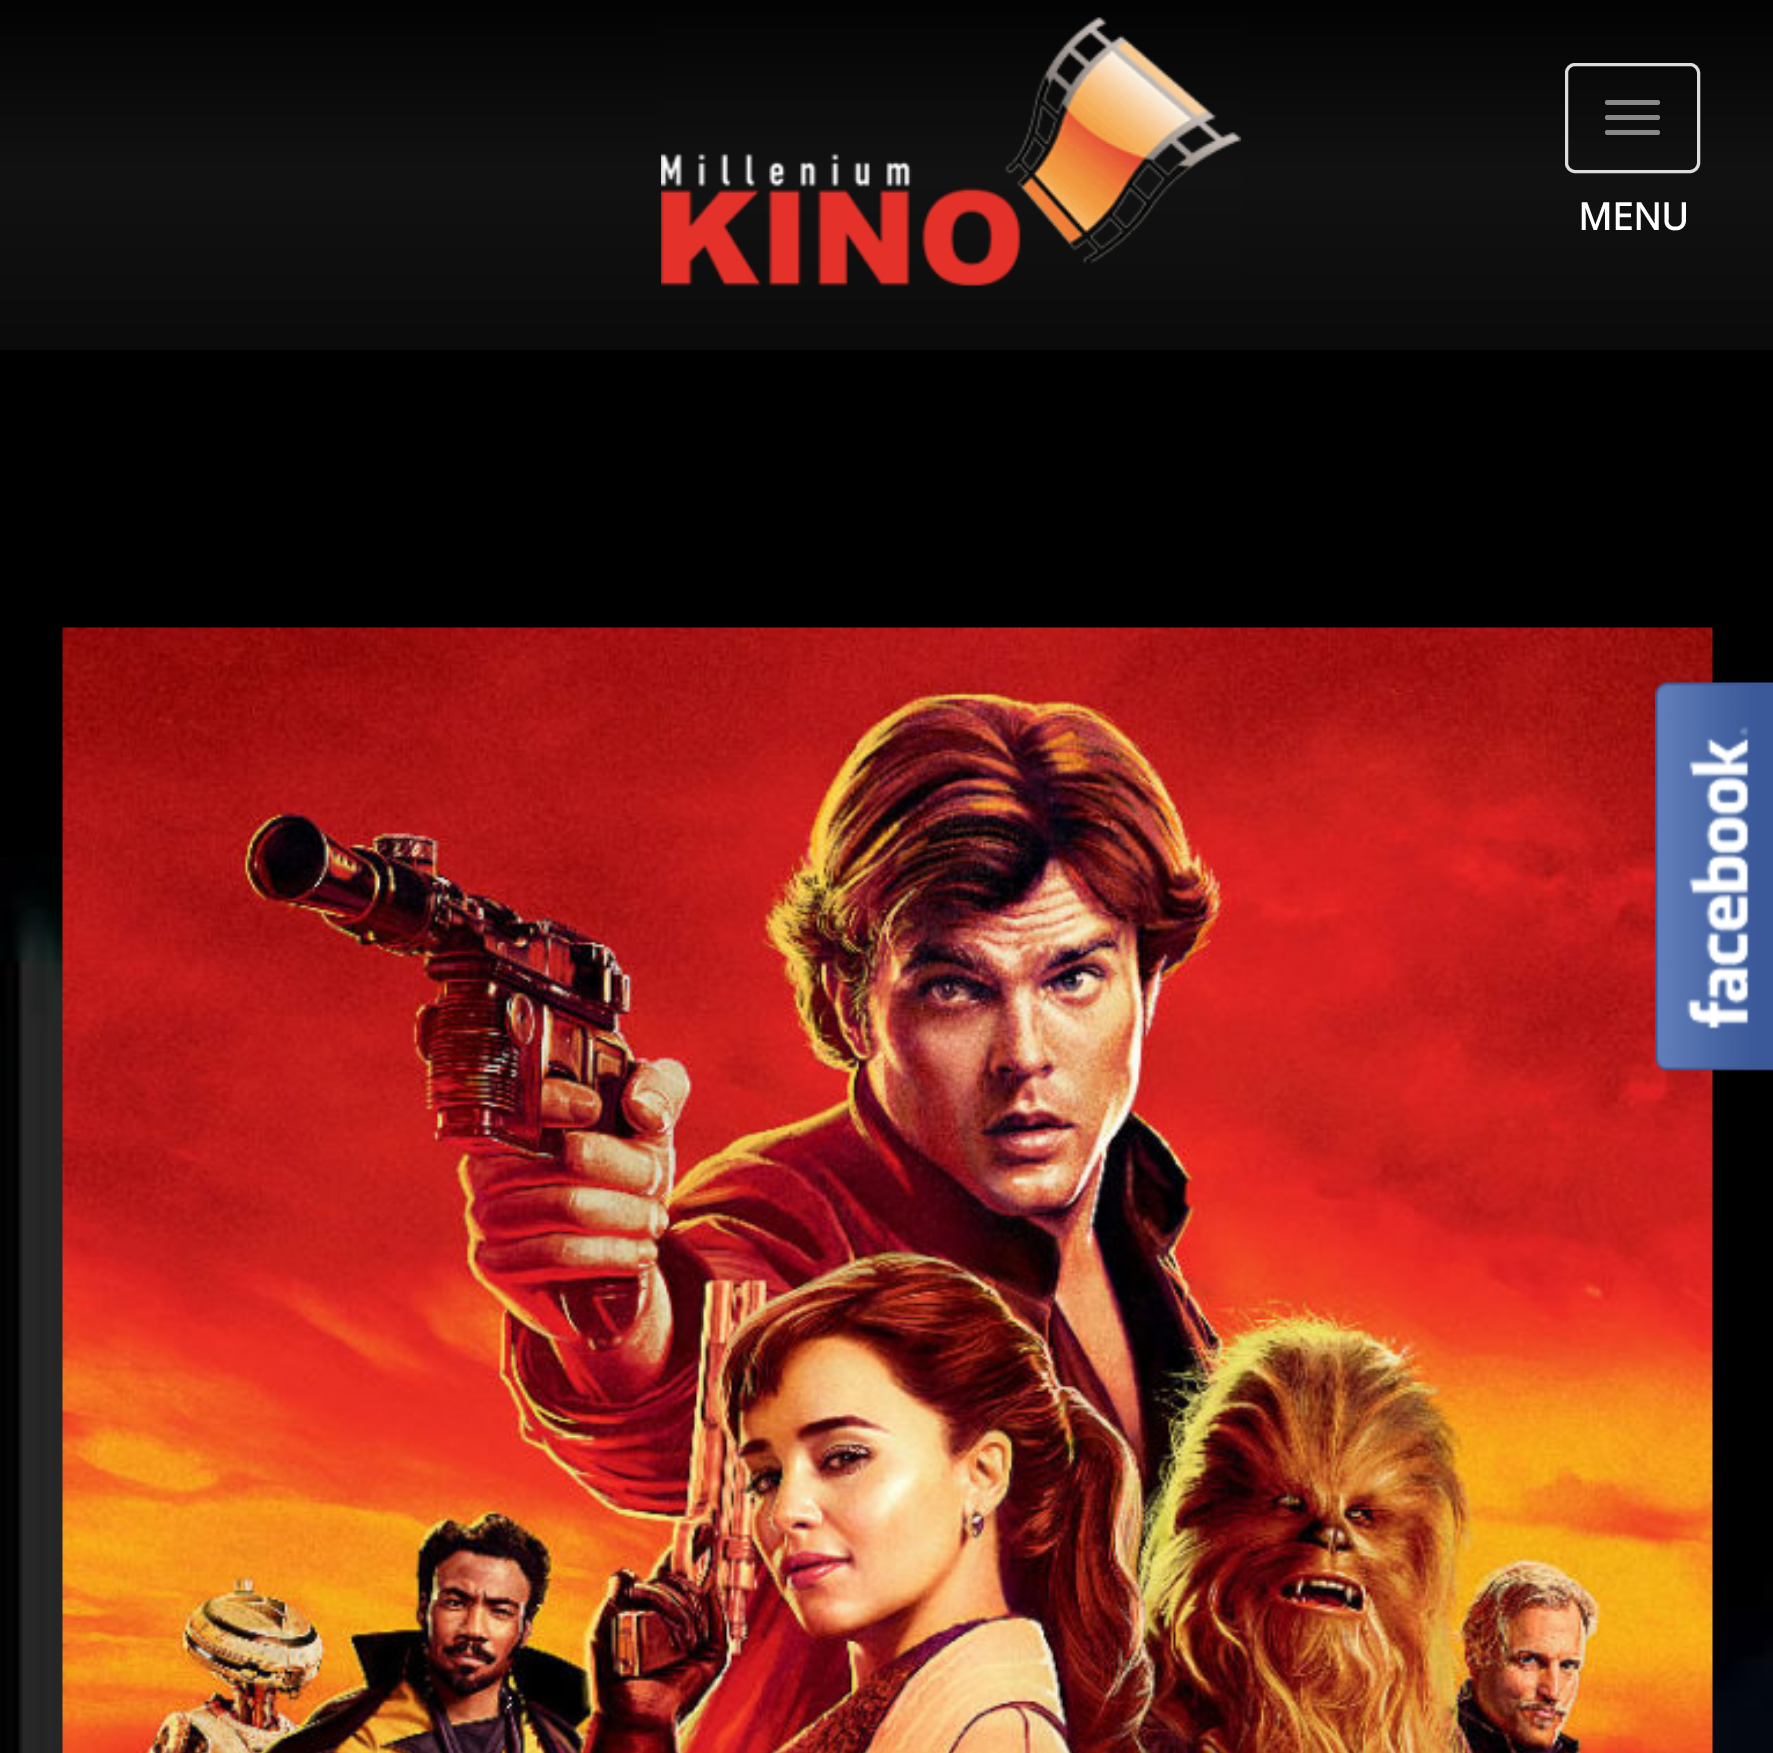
%!PS
<< /PageSize [1773 1753] >> setpagedevice
/mt/moveto load def
/li/lineto load def
/cp/closepath load def
/fl/fill load def
/st/stroke load def
/gs/gsave load def
/gr/grestore load def
/lw/setlinewidth load def
/co { dup -16 bitshift 255 div exch dup -8 bitshift 255 and 255 div exch 255 and 255 div setrgbcolor } def
/fn { [ exch dup neg 0 0 3 -1 roll 0 0 ] selectfont } def
/tx { co fn moveto show } def
/bx { co rectfill } def
/rr { 5 dict begin { /r /h /w /y /x } { exch def } forall
  x r add y moveto x w add y 2 copy h add r arct x w add y h add x 1 index r arct
  x y h add x y r arct x y 2 copy exch w add exch r arct closepath end } def
/im { 5 dict begin { /h /w /y /x /name } { exch def } forall
  gsave x y translate w h scale
  w h 8 [w 0 0 h 0 0] name (r) file false 3 colorimage grestore end } def
0 1753 translate 1 -1 scale
4 setmiterlimit
0 0 1773 1753 16#000000 bx
gs 0 0 mt 1773 0 li 1773 350 li 0 350 li cp clip newpath
<< /ShadingType 2 /ColorSpace /DeviceRGB /Coords [888 0 888 350] /Extend [true true] /Function << /FunctionType 3 /Domain [0 1] /Functions [<< /FunctionType 2 /Domain [0 1] /C0 [.012 .012 .012] /C1 [.071 .071 .071] /N 1 >> << /FunctionType 2 /Domain [0 1] /C0 [.071 .071 .071] /C1 [.043 .043 .043] /N 1 >>] /Bounds [.5] /Encode [0 1 0 1] >> >> shfill gr
(media/1.raw) 661 17 581 269 im
16#DDDDDD co
3 lw
1566.5 64.5 132 107 8.5 rr st
16#888888 co
1605 100 55 5 2.5 rr fl
1605 115 55 5 2.5 rr fl
1605 130 55 5 2.5 rr fl
(media/2.raw) 0 857 1773 896 im
(media/3.raw) 62 627 1651 1126 im
(media/4.raw) 1655 682 118 389 im
(MENU) 1578 230 /OpenSans-Bold 37.5 16#FFFFFF tx
showpage
